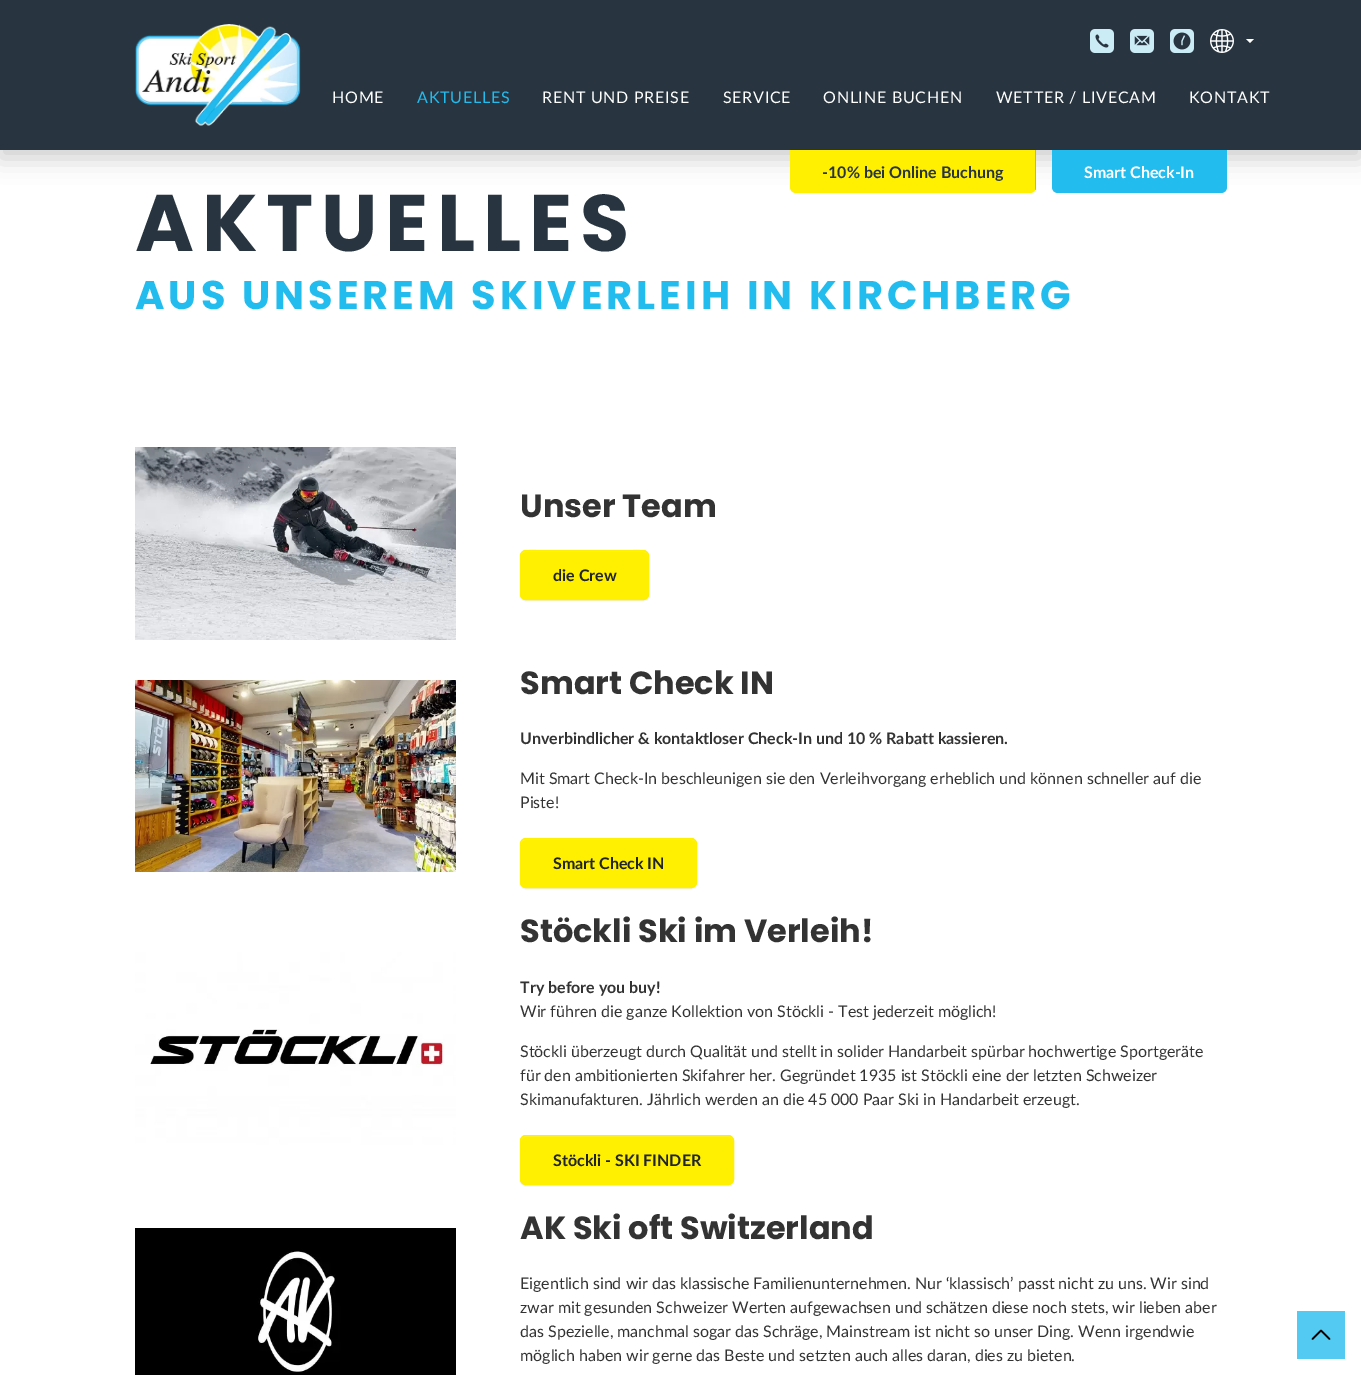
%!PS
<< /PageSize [1361 1375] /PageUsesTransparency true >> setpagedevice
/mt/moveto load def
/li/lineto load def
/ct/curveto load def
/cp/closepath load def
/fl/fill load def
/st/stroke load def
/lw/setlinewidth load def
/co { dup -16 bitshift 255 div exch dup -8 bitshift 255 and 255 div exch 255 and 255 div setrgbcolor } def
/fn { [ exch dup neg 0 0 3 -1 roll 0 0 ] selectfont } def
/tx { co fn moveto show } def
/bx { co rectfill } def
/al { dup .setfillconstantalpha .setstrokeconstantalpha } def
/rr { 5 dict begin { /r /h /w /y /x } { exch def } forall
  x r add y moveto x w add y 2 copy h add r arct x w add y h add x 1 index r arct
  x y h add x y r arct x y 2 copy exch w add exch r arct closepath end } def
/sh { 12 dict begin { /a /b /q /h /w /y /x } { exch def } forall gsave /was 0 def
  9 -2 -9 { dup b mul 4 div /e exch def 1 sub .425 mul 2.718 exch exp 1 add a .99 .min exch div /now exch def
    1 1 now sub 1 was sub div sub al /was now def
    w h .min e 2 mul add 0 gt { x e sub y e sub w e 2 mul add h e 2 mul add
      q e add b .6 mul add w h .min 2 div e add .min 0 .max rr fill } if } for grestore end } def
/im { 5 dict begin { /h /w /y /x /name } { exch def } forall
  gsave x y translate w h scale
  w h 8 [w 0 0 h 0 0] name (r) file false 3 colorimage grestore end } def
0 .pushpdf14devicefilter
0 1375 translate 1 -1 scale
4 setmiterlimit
0 0 1361 1375 16#FFFFFF bx
16#000000 co
0 8 1361 150 0 12 .2 sh
0 0 1361 150 16#283540 bx
(media/1.raw) 135 24 166 102 im
(media/2.raw) 1090 29 24 24 im
(media/3.raw) 1130 29 24 24 im
(media/4.raw) 1170 29 24 24 im
(media/5.raw) 1210 29 24 24 im
16#FFFFFF co
1246 39 mt 1254 39 li 1250 43 li cp fl
16#FFF002 co
790 150 mt 1036 150 li 1036 187 li 1036 190.5 1033.5 193 1030 193 ct 796 193 li 792.5 193 790 190.5 790 187 ct cp fl
0.2 al
1035 150 1 40 16#000000 bx
1 al
16#23BCEF co
1052 150 mt 1227 150 li 1227 187 li 1227 190.5 1224.5 193 1221 193 ct 1058 193 li 1054.5 193 1052 190.5 1052 187 ct cp fl
(media/6.raw) 135 447 321 193 im
16#000000 co
520 551 129 50 6 .5 .07 sh
16#FFF002 co
520 550 129 50 6 rr fl
16#FFF228 co
526 552 mt 643 552 li 646 552 648 554 648 557 ct 648 546 628 551 624 551 ct 546 551 li 541 551 521 546 521 557 ct 521 554 523 552 526 552 ct cp fl
16#FFF002 co
520.5 550.5 128 49 5.5 rr st
(media/7.raw) 135 680 321 192 im
16#000000 co
520 839 177 50 6 .5 .07 sh
16#FFF002 co
520 838 177 50 6 rr fl
16#FFF228 co
526 840 mt 691 840 li 694 840 696 842 696 845 ct 696 842 695 840 692 839 ct 526 839 li 523 840 li 521 841 521 843 521 845 ct 521 842 523 840 526 840 ct cp fl
16#FFF002 co
520.5 838.5 176 49 5.5 rr st
(media/8.raw) 135 952 321 193 im
16#000000 co
520 1136 214 50 6 .5 .07 sh
16#FFF002 co
520 1135 214 50 6 rr fl
16#FFF228 co
526 1137 mt 728 1137 li 731 1137 733 1139 733 1142 ct 733 1141 li 733 1138 731 1136 728 1136 ct 526 1136 li 523 1136 521 1138 521 1141 ct 521 1142 li 521 1139 523 1137 526 1137 ct cp fl
16#FFF002 co
520.5 1135.5 213 49 5.5 rr st
(media/9.raw) 135 1228 321 147 im
1297 1311 48 48 16#53CAF2 bx
16#000000 co
1.7 lw
1 setlinecap
1 setlinejoin
1312.5 1339 mt 1321 1330.5 li 1329.5 1339 li st
/Lato-Regular 16 fn
16#FFFFFF co
332 103 mt .75 0 (HOME) ashow
16#23BCEF co
417 103 mt .75 0 (AKTUELLES) ashow
16#FFFFFF co
542 103 mt .75 0 (RENT UND PREISE) ashow
723 103 mt .75 0 (SERVICE) ashow
823 103 mt .75 0 (ONLINE BUCHEN) ashow
996 103 mt .75 0 (WETTER / LIVECAM) ashow
1189 103 mt .75 0 (KONTAKT) ashow
(-10% bei Online Buchung) 822 178 /Lato-Bold 16 16#283540 tx
(Smart Check-In) 1084 178 /Lato-Bold 16 16#FFFFFF tx
/Poppins-Bold 80 fn
16#283540 co
135 251 mt 8 0 (AKTUELLES) ashow
/Poppins-Bold 40 fn
16#23BCEF co
135 309 mt 4 0 (AUS UNSEREM SKIVERLEIH IN KIRCHBERG) ashow
(Unser Team) 520 517 /Poppins-Bold 32 16#333333 tx
(die Crew) 553 581 /Lato-Bold 16 16#212529 tx
(Smart Check IN) 520 694 /Poppins-Bold 32 16#333333 tx
(Unverbindlicher & kontaktloser Check-In und 10 % Rabatt kassieren.) 520 744 /Lato-Bold 16 16#333333 tx
(Mit Smart Check-In beschleunigen sie den Verleihvorgang erheblich und können schneller auf die) 520 784 /Lato-Regular 16 16#333333 tx
(Piste!) 520 808 /Lato-Regular 16 16#333333 tx
(Smart Check IN) 553 869 /Lato-Bold 16 16#212529 tx
(Stöckli Ski im Verleih!) 520 942 /Poppins-Bold 32 16#333333 tx
(Try before you buy!) 520 993 /Lato-Bold 16 16#333333 tx
(Wir führen die ganze Kollektion von Stöckli - Test jederzeit möglich!) 520 1017 /Lato-Regular 16 16#333333 tx
(Stöckli überzeugt durch Qualität und stellt in solider Handarbeit spürbar hochwertige Sportgeräte) 520 1057 /Lato-Regular 16 16#333333 tx
(für den ambitionierten Skifahrer her. Gegründet 1935 ist Stöckli eine der letzten Schweizer) 520 1081 /Lato-Regular 16 16#333333 tx
(Skimanufakturen. Jährlich werden an die 45 000 Paar Ski in Handarbeit erzeugt.) 520 1105 /Lato-Regular 16 16#333333 tx
(Stöckli - SKI FINDER) 553 1166 /Lato-Bold 16 16#212529 tx
(AK Ski oft Switzerland) 520 1239 /Poppins-Bold 32 16#333333 tx
(Eigentlich sind wir das klassische Familienunternehmen. Nur ‘klassisch’ passt nicht zu uns. Wir sind) 520 1289 /Lato-Regular 16 16#333333 tx
(zwar mit gesunden Schweizer Werten aufgewachsen und schätzen diese noch stets, wir lieben aber) 520 1313 /Lato-Regular 16 16#333333 tx
(das Spezielle, manchmal sogar das Schräge, Mainstream ist nicht so unser Ding. Wenn irgendwie) 520 1337 /Lato-Regular 16 16#333333 tx
(möglich haben wir gerne das Beste und setzten auch alles daran, dies zu bieten.) 520 1361 /Lato-Regular 16 16#333333 tx
.poppdf14devicefilter showpage
